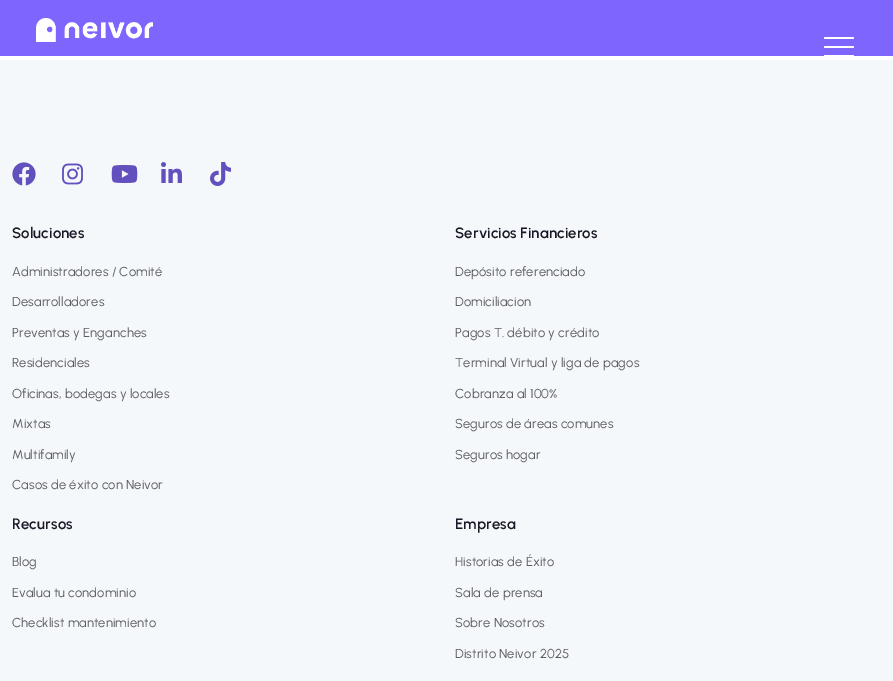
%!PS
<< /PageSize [893 681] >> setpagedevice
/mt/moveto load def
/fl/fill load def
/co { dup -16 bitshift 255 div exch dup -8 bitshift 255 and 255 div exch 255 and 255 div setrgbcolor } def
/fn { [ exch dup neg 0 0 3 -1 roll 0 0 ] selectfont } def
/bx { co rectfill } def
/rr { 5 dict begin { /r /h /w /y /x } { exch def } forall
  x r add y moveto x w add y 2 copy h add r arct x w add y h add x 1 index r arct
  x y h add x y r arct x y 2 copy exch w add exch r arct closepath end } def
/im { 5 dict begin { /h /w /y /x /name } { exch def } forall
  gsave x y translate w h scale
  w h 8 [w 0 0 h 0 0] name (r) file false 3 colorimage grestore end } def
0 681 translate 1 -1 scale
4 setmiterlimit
0 0 893 681 16#FFFFFF bx
0 0 893 56 16#7D65FE bx
(media/1.raw) 36 18 117 24 im
16#FFFFFF co
824 37 30 2 1 rr fl
824 46 30 2 1 rr fl
824 55 30 2 1 rr fl
0 60 893 621 16#F5F8FA bx
(media/2.raw) 12 162 24 24 im
(media/3.raw) 62 163 21 22 im
(media/4.raw) 111 165 27 18 im
(media/5.raw) 161 162 21 21 im
(media/6.raw) 210 162 21 24 im
/Urbanist-SemiBold 15 fn
16#1A1727 co
12 238 mt .1 0 (Soluciones) ashow
/Urbanist-Regular 13 fn
16#5D5C62 co
12 276 mt .1 0 (Administradores / Comité) ashow
12 306 mt .1 0 (Desarrolladores) ashow
12 337 mt .1 0 (Preventas y Enganches) ashow
12 367 mt .1 0 (Residenciales) ashow
12 398 mt .1 0 (Oficinas, bodegas y locales) ashow
12 428 mt .1 0 (Mixtas) ashow
12 459 mt .1 0 (Multifamily) ashow
12 489 mt .1 0 (Casos de éxito con Neivor) ashow
/Urbanist-SemiBold 15 fn
16#1A1727 co
455 238 mt .1 0 (Servicios Financieros) ashow
/Urbanist-Regular 13 fn
16#5D5C62 co
455 276 mt .1 0 (Depósito referenciado) ashow
455 306 mt .1 0 (Domiciliacion) ashow
455 337 mt .1 0 (Pagos T. débito y crédito) ashow
455 367 mt .1 0 (Terminal Virtual y liga de pagos) ashow
455 398 mt .1 0 (Cobranza al 100%) ashow
455 428 mt .1 0 (Seguros de áreas comunes) ashow
455 459 mt .1 0 (Seguros hogar) ashow
/Urbanist-SemiBold 15 fn
16#1A1727 co
12 529 mt .1 0 (Recursos) ashow
/Urbanist-Regular 13 fn
16#5D5C62 co
12 566 mt .1 0 (Blog) ashow
12 597 mt .1 0 (Evalua tu condominio) ashow
12 627 mt .1 0 (Checklist mantenimiento) ashow
/Urbanist-SemiBold 15 fn
16#1A1727 co
455 529 mt .1 0 (Empresa) ashow
/Urbanist-Regular 13 fn
16#5D5C62 co
455 566 mt .1 0 (Historias de Éxito) ashow
455 597 mt .1 0 (Sala de prensa) ashow
455 627 mt .1 0 (Sobre Nosotros) ashow
455 658 mt .1 0 (Distrito Neivor 2025) ashow
showpage
